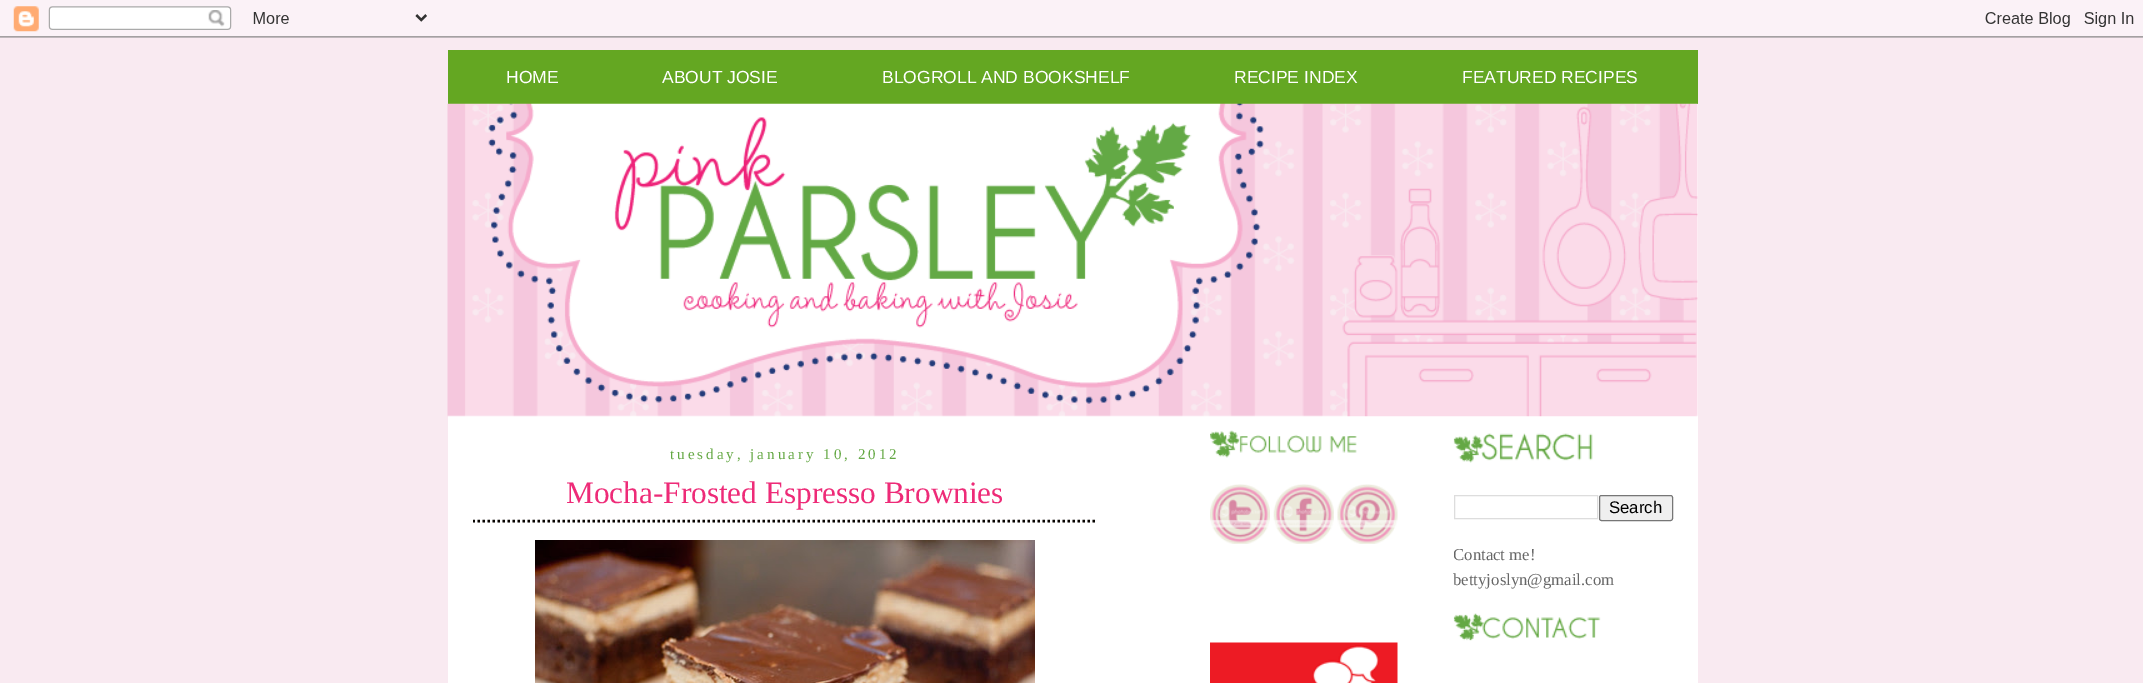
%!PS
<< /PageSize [2143 683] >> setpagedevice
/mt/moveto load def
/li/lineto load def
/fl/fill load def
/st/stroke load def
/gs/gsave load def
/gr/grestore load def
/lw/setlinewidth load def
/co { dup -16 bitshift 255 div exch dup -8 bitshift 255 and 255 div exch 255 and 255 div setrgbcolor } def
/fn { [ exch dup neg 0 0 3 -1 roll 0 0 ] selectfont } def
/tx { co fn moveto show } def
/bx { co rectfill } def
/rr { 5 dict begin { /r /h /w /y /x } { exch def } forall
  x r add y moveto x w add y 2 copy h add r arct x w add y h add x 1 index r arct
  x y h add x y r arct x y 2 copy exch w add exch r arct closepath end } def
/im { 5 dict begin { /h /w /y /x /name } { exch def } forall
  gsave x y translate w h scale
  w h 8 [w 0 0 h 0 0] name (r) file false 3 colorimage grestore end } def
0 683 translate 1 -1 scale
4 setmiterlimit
0 0 2143 683 16#F9EAF1 bx
(media/1.raw) 0 0 2143 38 im
448 104 1250 579 16#FFFFFF bx
448 50 1250 54 16#64A722 bx
(media/2.raw) 447 103 1251 314 im
gs
473 429 625 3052 rectclip
16#070401 co
2.5 lw
[2.5 2.5] 0 setdash
472.5 521 mt 1097.5 521 li st
gr
(media/3.raw) 535 540 500 143 im
(media/4.raw) 1210 430 147 28 im
(media/5.raw) 1210 484 60 60 im
(media/6.raw) 1273 484 61 60 im
(media/7.raw) 1337 484 61 60 im
(media/8.raw) 1210 642 188 41 im
(media/9.raw) 1453 433 140 30 im
16#DDDDDD co
1454.5 495.5 143 23 rectstroke
16#EFEFEF co
1599.5 495.5 73 25 2 rr gs fl gr
16#767676 co
st
(media/10.raw) 1453 613 148 28 im
(HOME) 506 83 /LiberationSans-Regular 17.5 16#FFFFFF tx
(ABOUT JOSIE) 662 83 /LiberationSans-Regular 17.5 16#FFFFFF tx
(BLOGROLL AND BOOKSHELF) 882 83 /LiberationSans-Regular 17.5 16#FFFFFF tx
(RECIPE INDEX) 1234 83 /LiberationSans-Regular 17.5 16#FFFFFF tx
(FEATURED RECIPES) 1462 83 /LiberationSans-Regular 17.5 16#FFFFFF tx
/LiberationSerif-Regular 15 fn
16#64A844 co
670 459 mt 3 0 (tuesday, january 10, 2012) ashow
(Mocha-Frosted Espresso Brownies) 566 503 /LiberationSerif-Regular 31.25 16#EE2B78 tx
(Search) 1609 513 /LiberationSans-Regular 16.75 16#000000 tx
gs
1454 429 219 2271 rectclip
(Contact me!) 1453 560 /LiberationSerif-Regular 16.75 16#666666 tx
gr
(bettyjoslyn@gmail.com) 1453 585 /LiberationSerif-Regular 16.75 16#666666 tx
showpage
